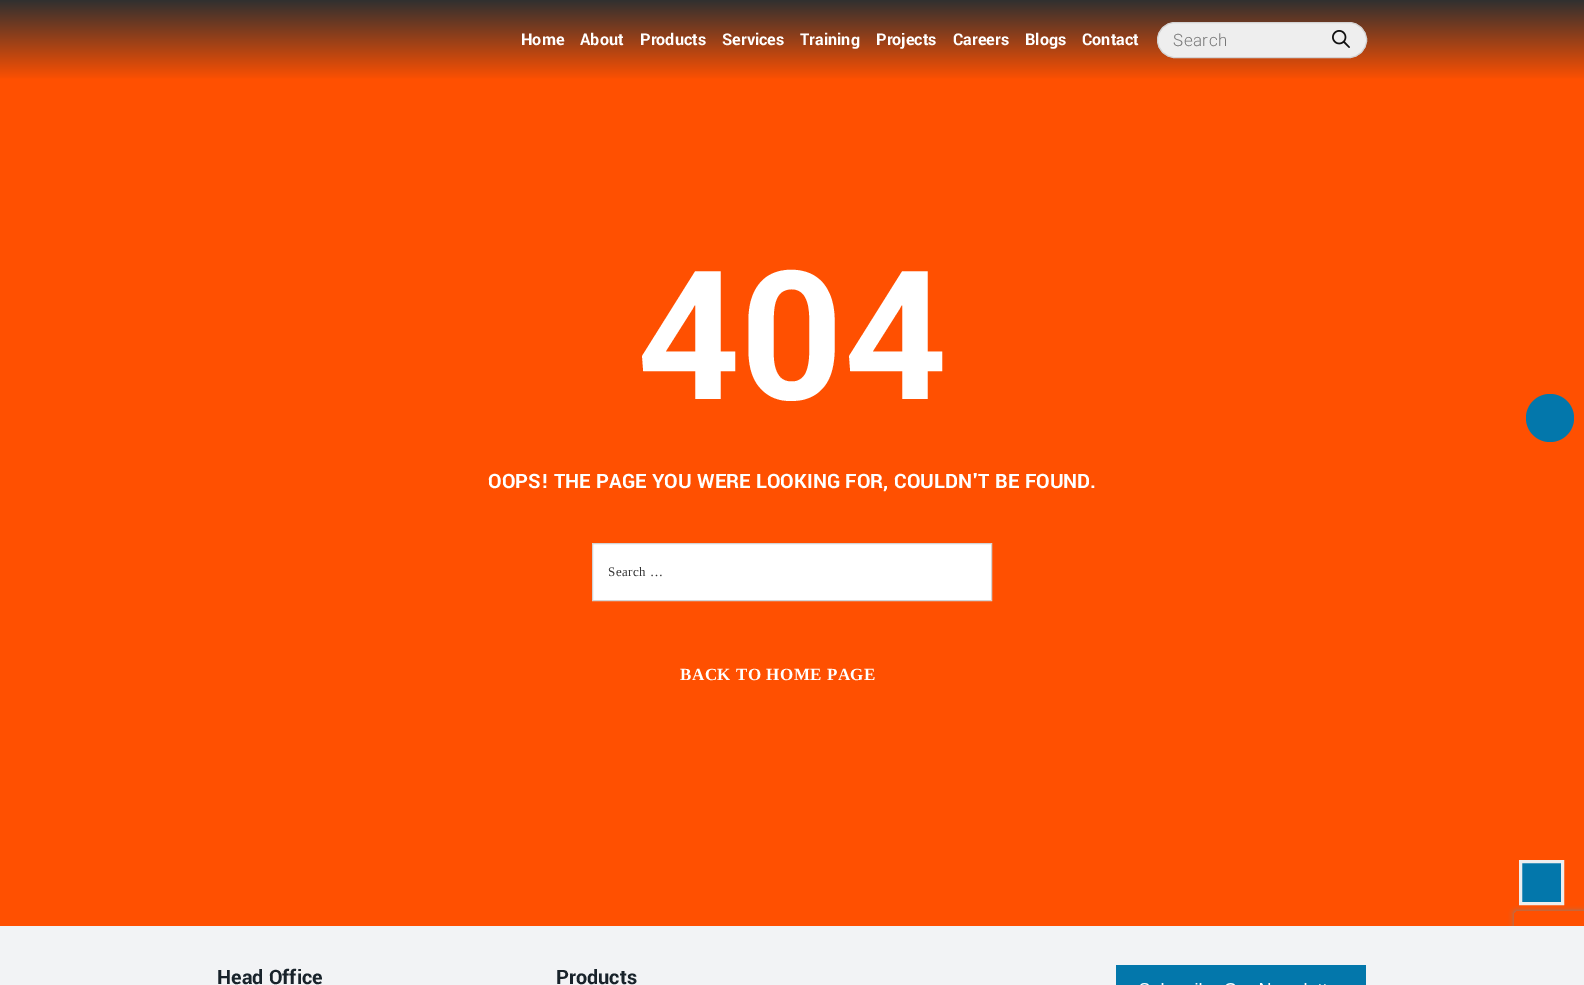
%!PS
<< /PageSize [1584 985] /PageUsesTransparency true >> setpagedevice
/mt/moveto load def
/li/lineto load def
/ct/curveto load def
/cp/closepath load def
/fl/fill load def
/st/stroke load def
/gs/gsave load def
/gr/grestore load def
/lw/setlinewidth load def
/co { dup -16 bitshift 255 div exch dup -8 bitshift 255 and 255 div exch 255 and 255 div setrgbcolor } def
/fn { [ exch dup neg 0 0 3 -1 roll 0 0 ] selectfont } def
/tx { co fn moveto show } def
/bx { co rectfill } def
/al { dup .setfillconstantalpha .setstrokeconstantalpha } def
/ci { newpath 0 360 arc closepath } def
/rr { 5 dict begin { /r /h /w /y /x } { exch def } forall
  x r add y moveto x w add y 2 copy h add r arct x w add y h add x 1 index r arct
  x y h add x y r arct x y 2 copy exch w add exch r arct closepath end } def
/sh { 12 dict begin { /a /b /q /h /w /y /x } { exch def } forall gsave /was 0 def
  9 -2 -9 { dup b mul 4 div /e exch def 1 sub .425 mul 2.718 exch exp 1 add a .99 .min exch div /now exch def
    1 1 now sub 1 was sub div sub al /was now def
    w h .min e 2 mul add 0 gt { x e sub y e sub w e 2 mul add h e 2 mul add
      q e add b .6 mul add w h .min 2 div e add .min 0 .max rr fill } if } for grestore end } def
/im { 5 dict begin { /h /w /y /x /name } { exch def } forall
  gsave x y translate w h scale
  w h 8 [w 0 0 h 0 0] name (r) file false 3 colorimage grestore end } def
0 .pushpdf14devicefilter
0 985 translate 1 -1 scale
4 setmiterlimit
0 0 1584 985 16#FF5001 bx
gs 0 0 mt 1584 0 li 1584 79 li 0 79 li cp clip newpath
<< /ShadingType 2 /ColorSpace /DeviceRGB /Coords [792 0 792 80] /Extend [true true] /Function << /FunctionType 2 /Domain [0 1] /C0 [.188 .188 .188] /C1 [1 .314 .004] /N 1 >> >> shfill gr
16#EEEEEE co
1157.5 22.5 209 35 17.5 rr gs fl gr
16#D3D3D3 co
st
(media/1.raw) 1332 30 18 18 im
16#FFFFFF co
592.5 543.5 mt 991.5 543.5 li 991.5 600.5 li 592.5 600.5 li cp gs fl gr
16#D3D3D3 co
st
gs
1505 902 mt 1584 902 li 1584 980 li 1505 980 li cp 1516 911 mt 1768 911 li 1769 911 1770 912 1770 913 ct 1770 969 li 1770 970 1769 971 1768 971 ct 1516 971 li 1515 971 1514 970 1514 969 ct 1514 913 li 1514 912 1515 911 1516 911 ct cp eoclip newpath
16#808080 co
1514 911 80 60 2 2.5 1 sh
gr
0 926 1584 59 16#F2F3F5 bx
(media/2.raw) 1116 965 250 20 im
16#0377AB co
1550 418 24 ci fl
1520.5 861.5 mt 1562.5 861.5 li 1562.5 903.5 li 1520.5 903.5 li cp gs fl gr
16#EEEEEE co
3 lw
st
(Home) 521 45 /Yantramanav-Bold 18 16#FFFFFF tx
(About) 580 45 /Yantramanav-Bold 18 16#FFFFFF tx
(Products) 640 45 /Yantramanav-Bold 18 16#FFFFFF tx
(Services) 722 45 /Yantramanav-Bold 18 16#FFFFFF tx
(Training) 800 45 /Yantramanav-Bold 18 16#FFFFFF tx
(Projects) 876 45 /Yantramanav-Bold 18 16#FFFFFF tx
(Careers) 953 45 /Yantramanav-Bold 18 16#FFFFFF tx
(Blogs) 1025 45 /Yantramanav-Bold 18 16#FFFFFF tx
(Contact) 1082 45 /Yantramanav-Bold 18 16#FFFFFF tx
/Roboto-Light 17 fn
16#777777 co
1173 46 mt .5 0 (Search) ashow
(404) 637 399 /Yantramanav-Bold 200 16#FFFFFF tx
(OOPS! THE PAGE YOU WERE LOOKING FOR, COULDN'T BE FOUND.) 488 488 /Yantramanav-Bold 22 16#FFFFFF tx
/LiberationSerif-Regular 13 fn
16#333333 co
608 576 mt .5 0 (Search …) ashow
/LiberationSerif-Bold 17 fn
16#FFFFFF co
680 680 mt .5 0 (BACK TO HOME PAGE) ashow
(Head Office) 217 984 /Yantramanav-Bold 22 16#19232B tx
(Products) 556 984 /Yantramanav-Bold 22 16#19232B tx
.poppdf14devicefilter showpage
